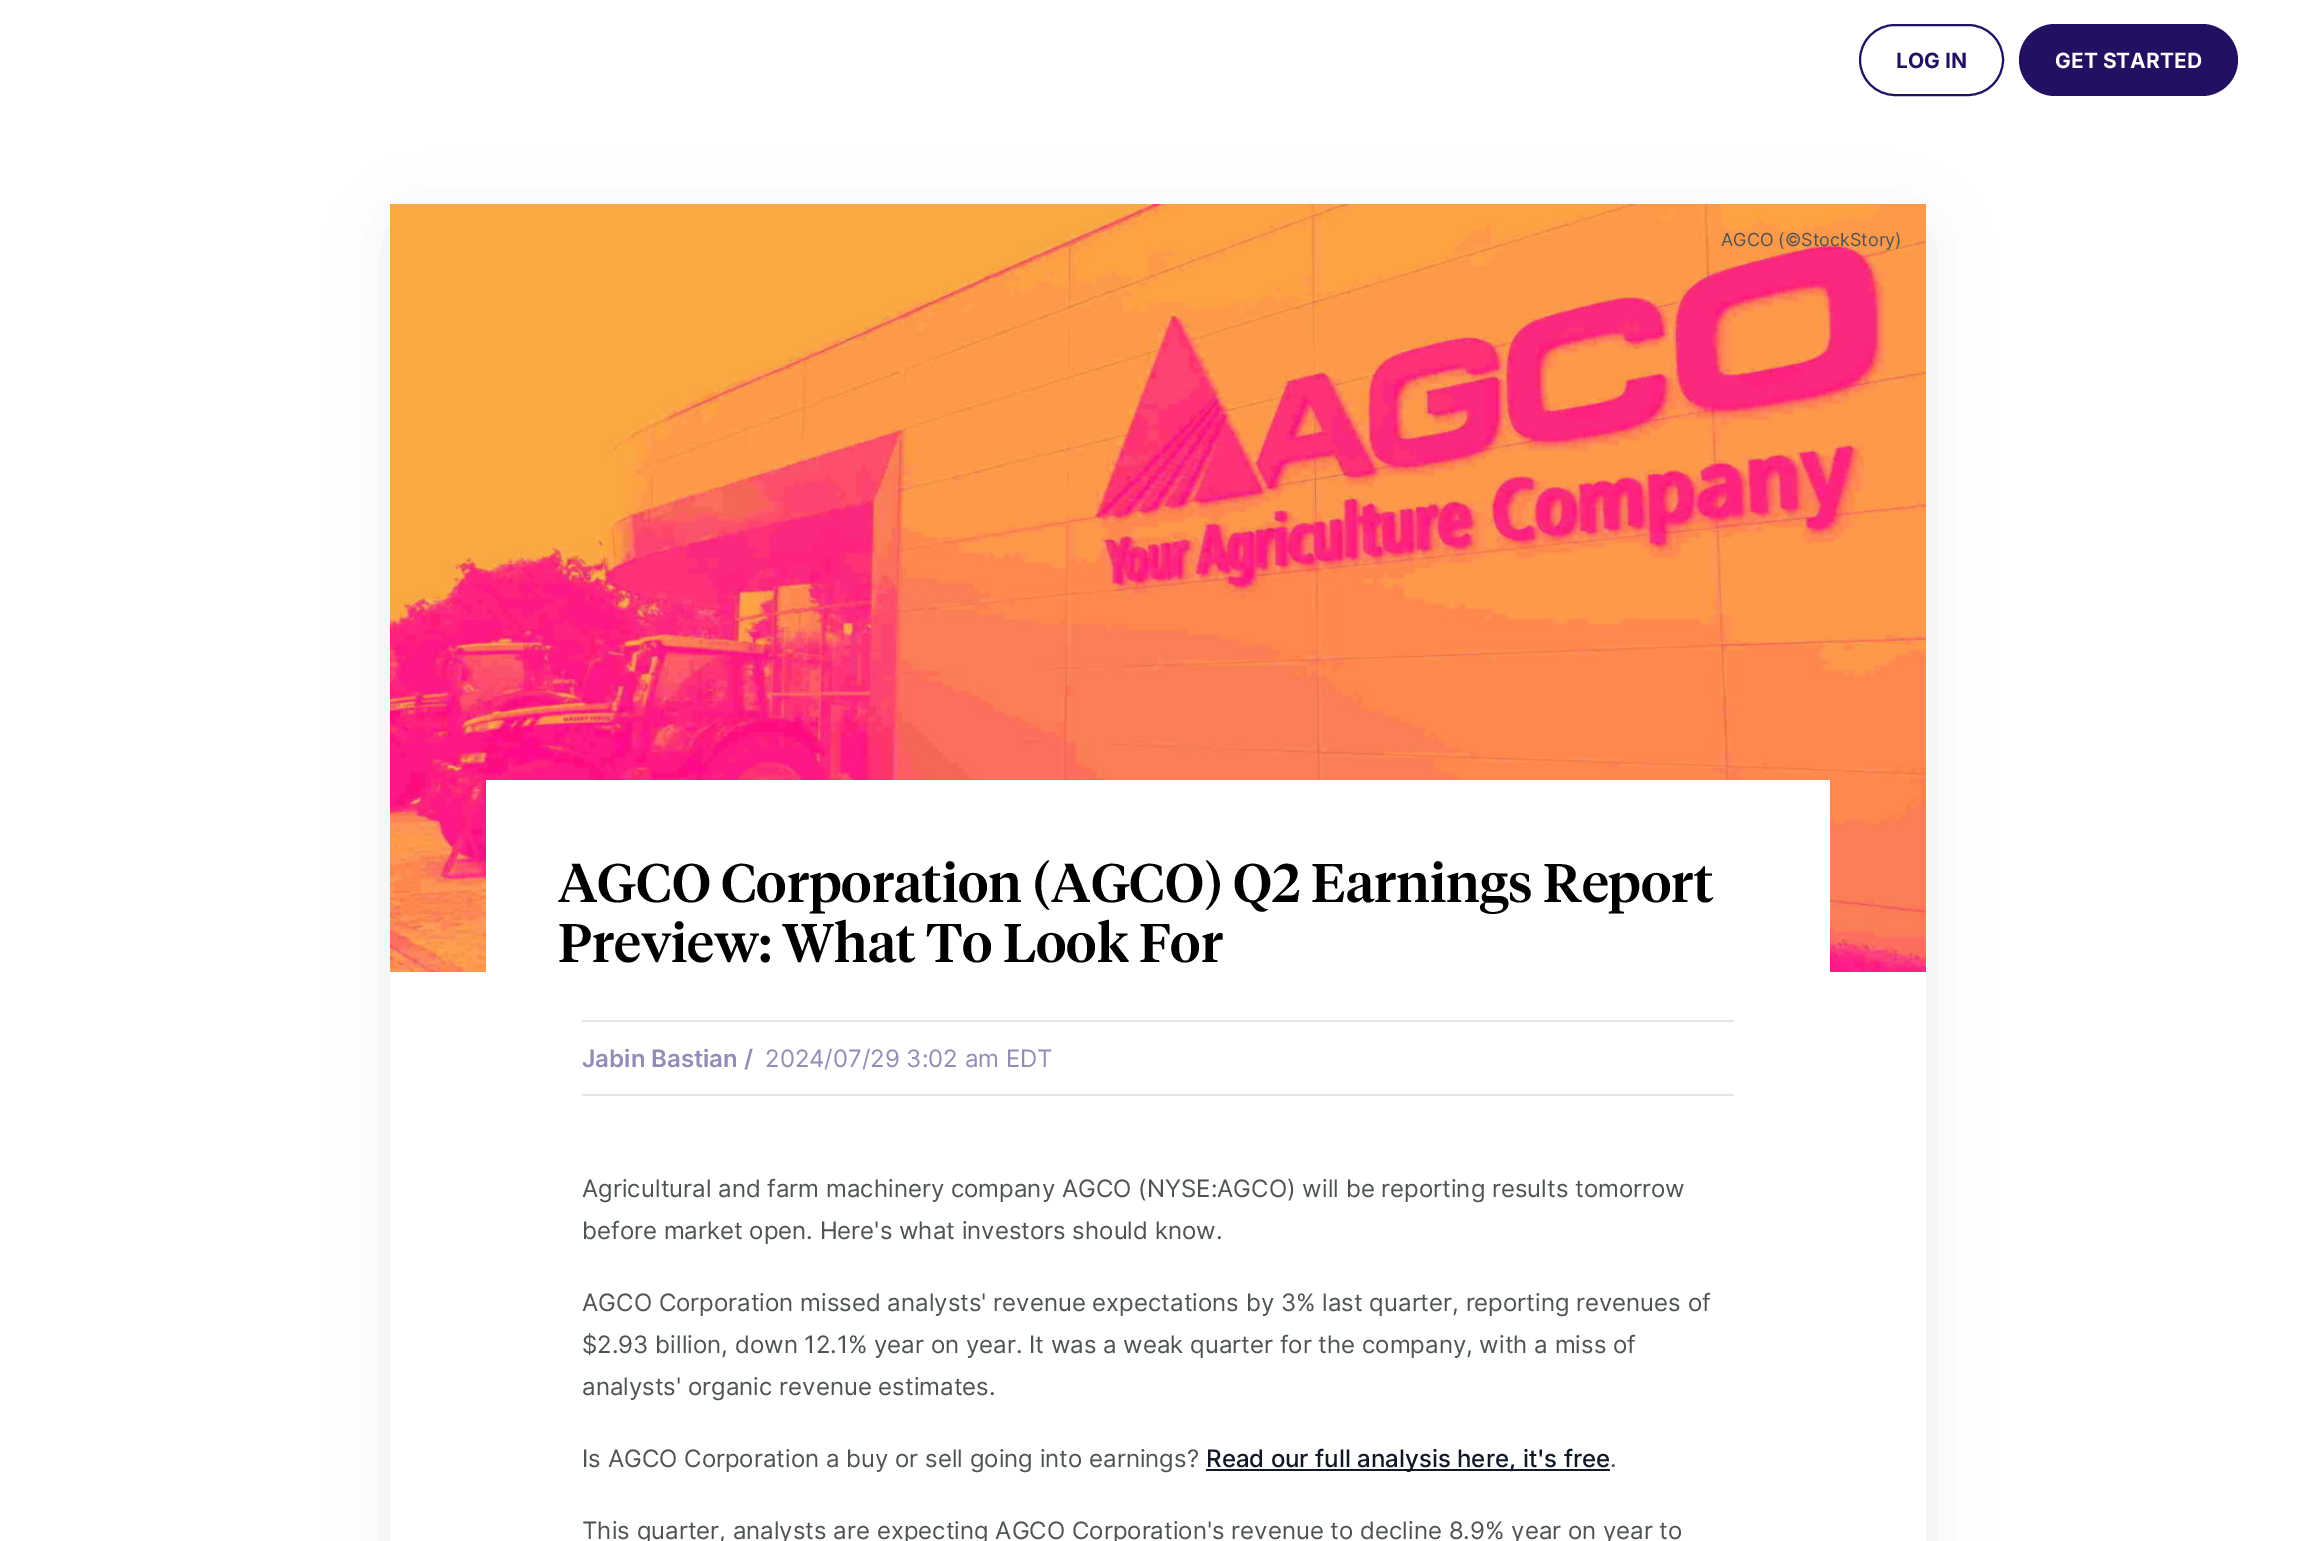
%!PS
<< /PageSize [2315 1541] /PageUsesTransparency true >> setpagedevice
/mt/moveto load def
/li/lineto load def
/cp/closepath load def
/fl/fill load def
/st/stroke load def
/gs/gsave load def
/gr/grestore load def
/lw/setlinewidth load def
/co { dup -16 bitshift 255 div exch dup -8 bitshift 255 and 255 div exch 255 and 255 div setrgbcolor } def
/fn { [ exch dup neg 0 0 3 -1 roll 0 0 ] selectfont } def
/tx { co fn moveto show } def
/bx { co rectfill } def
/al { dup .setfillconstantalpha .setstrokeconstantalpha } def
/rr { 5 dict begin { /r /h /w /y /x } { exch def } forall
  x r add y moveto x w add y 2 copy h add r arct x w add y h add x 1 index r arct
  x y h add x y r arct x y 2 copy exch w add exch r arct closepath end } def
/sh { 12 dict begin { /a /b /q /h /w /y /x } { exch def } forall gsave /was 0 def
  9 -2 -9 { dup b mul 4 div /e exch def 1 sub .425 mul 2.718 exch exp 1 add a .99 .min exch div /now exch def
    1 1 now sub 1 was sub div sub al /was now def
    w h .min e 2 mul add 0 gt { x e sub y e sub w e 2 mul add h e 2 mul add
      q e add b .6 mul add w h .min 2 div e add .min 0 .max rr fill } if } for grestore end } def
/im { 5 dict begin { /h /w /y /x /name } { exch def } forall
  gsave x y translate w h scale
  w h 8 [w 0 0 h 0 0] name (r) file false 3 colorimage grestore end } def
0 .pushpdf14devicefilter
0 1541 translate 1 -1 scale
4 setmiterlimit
0 0 2315 1541 16#FFFFFF bx
16#241063 co
2 lw
1860 25 143 70 35 rr st
2019 24 219 72 36 rr fl
gs
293 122 mt 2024 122 li 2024 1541 li 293 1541 li cp 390 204 mt 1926 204 li 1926 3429 li 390 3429 li cp eoclip newpath
16#ABB7BD co
407 236 1503 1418 0 37.5 .38 sh
gr
(media/1.raw) 390 204 1536 768 im
486 780 1344 192 16#FFFFFF bx
582 1020 1152 2 16#E5E5E5 bx
582 1094 1152 2 16#E5E5E5 bx
1206 1469 404 2 16#111827 bx
(LOG IN) 1896 68 /Inter-Bold 21 16#241063 tx
(GET STARTED) 2055 68 /Inter-Bold 21 16#FFFFFF tx
(AGCO \(©StockStory\)) 1721 246 /Inter-Regular 18 16#4E5354 tx
(AGCO Corporation \(AGCO\) Q2 Earnings Report) 558 902 /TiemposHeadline-Medium 54 16#000000 tx
(Preview: What To Look For) 558 962 /TiemposHeadline-Medium 54 16#000000 tx
(Jabin Bastian /) 582 1067 /Inter-SemiBold 24 16#958BB6 tx
(2024/07/29 3:02 am EDT) 765 1067 /Inter-Regular 24 16#958BB6 tx
(Agricultural and farm machinery company AGCO \(NYSE:AGCO\) will be reporting results tomorrow) 582 1197 /Inter-Regular 24 16#4E5354 tx
(before market open. Here's what investors should know.) 582 1239 /Inter-Regular 24 16#4E5354 tx
(AGCO Corporation missed analysts' revenue expectations by 3% last quarter, reporting revenues of) 582 1311 /Inter-Regular 24 16#4E5354 tx
($2.93 billion, down 12.1% year on year. It was a weak quarter for the company, with a miss of) 582 1353 /Inter-Regular 24 16#4E5354 tx
(analysts' organic revenue estimates.) 582 1395 /Inter-Regular 24 16#4E5354 tx
(Is AGCO Corporation a buy or sell going into earnings?) 582 1467 /Inter-Regular 24 16#4E5354 tx
(Read our full analysis here, it's free) 1206 1467 /Inter-Medium 24 16#111827 tx
(.) 1610 1467 /Inter-Regular 24 16#4E5354 tx
(This quarter, analysts are expecting AGCO Corporation's revenue to decline 8.9% year on year to) 582 1539 /Inter-Regular 24 16#4E5354 tx
.poppdf14devicefilter showpage
